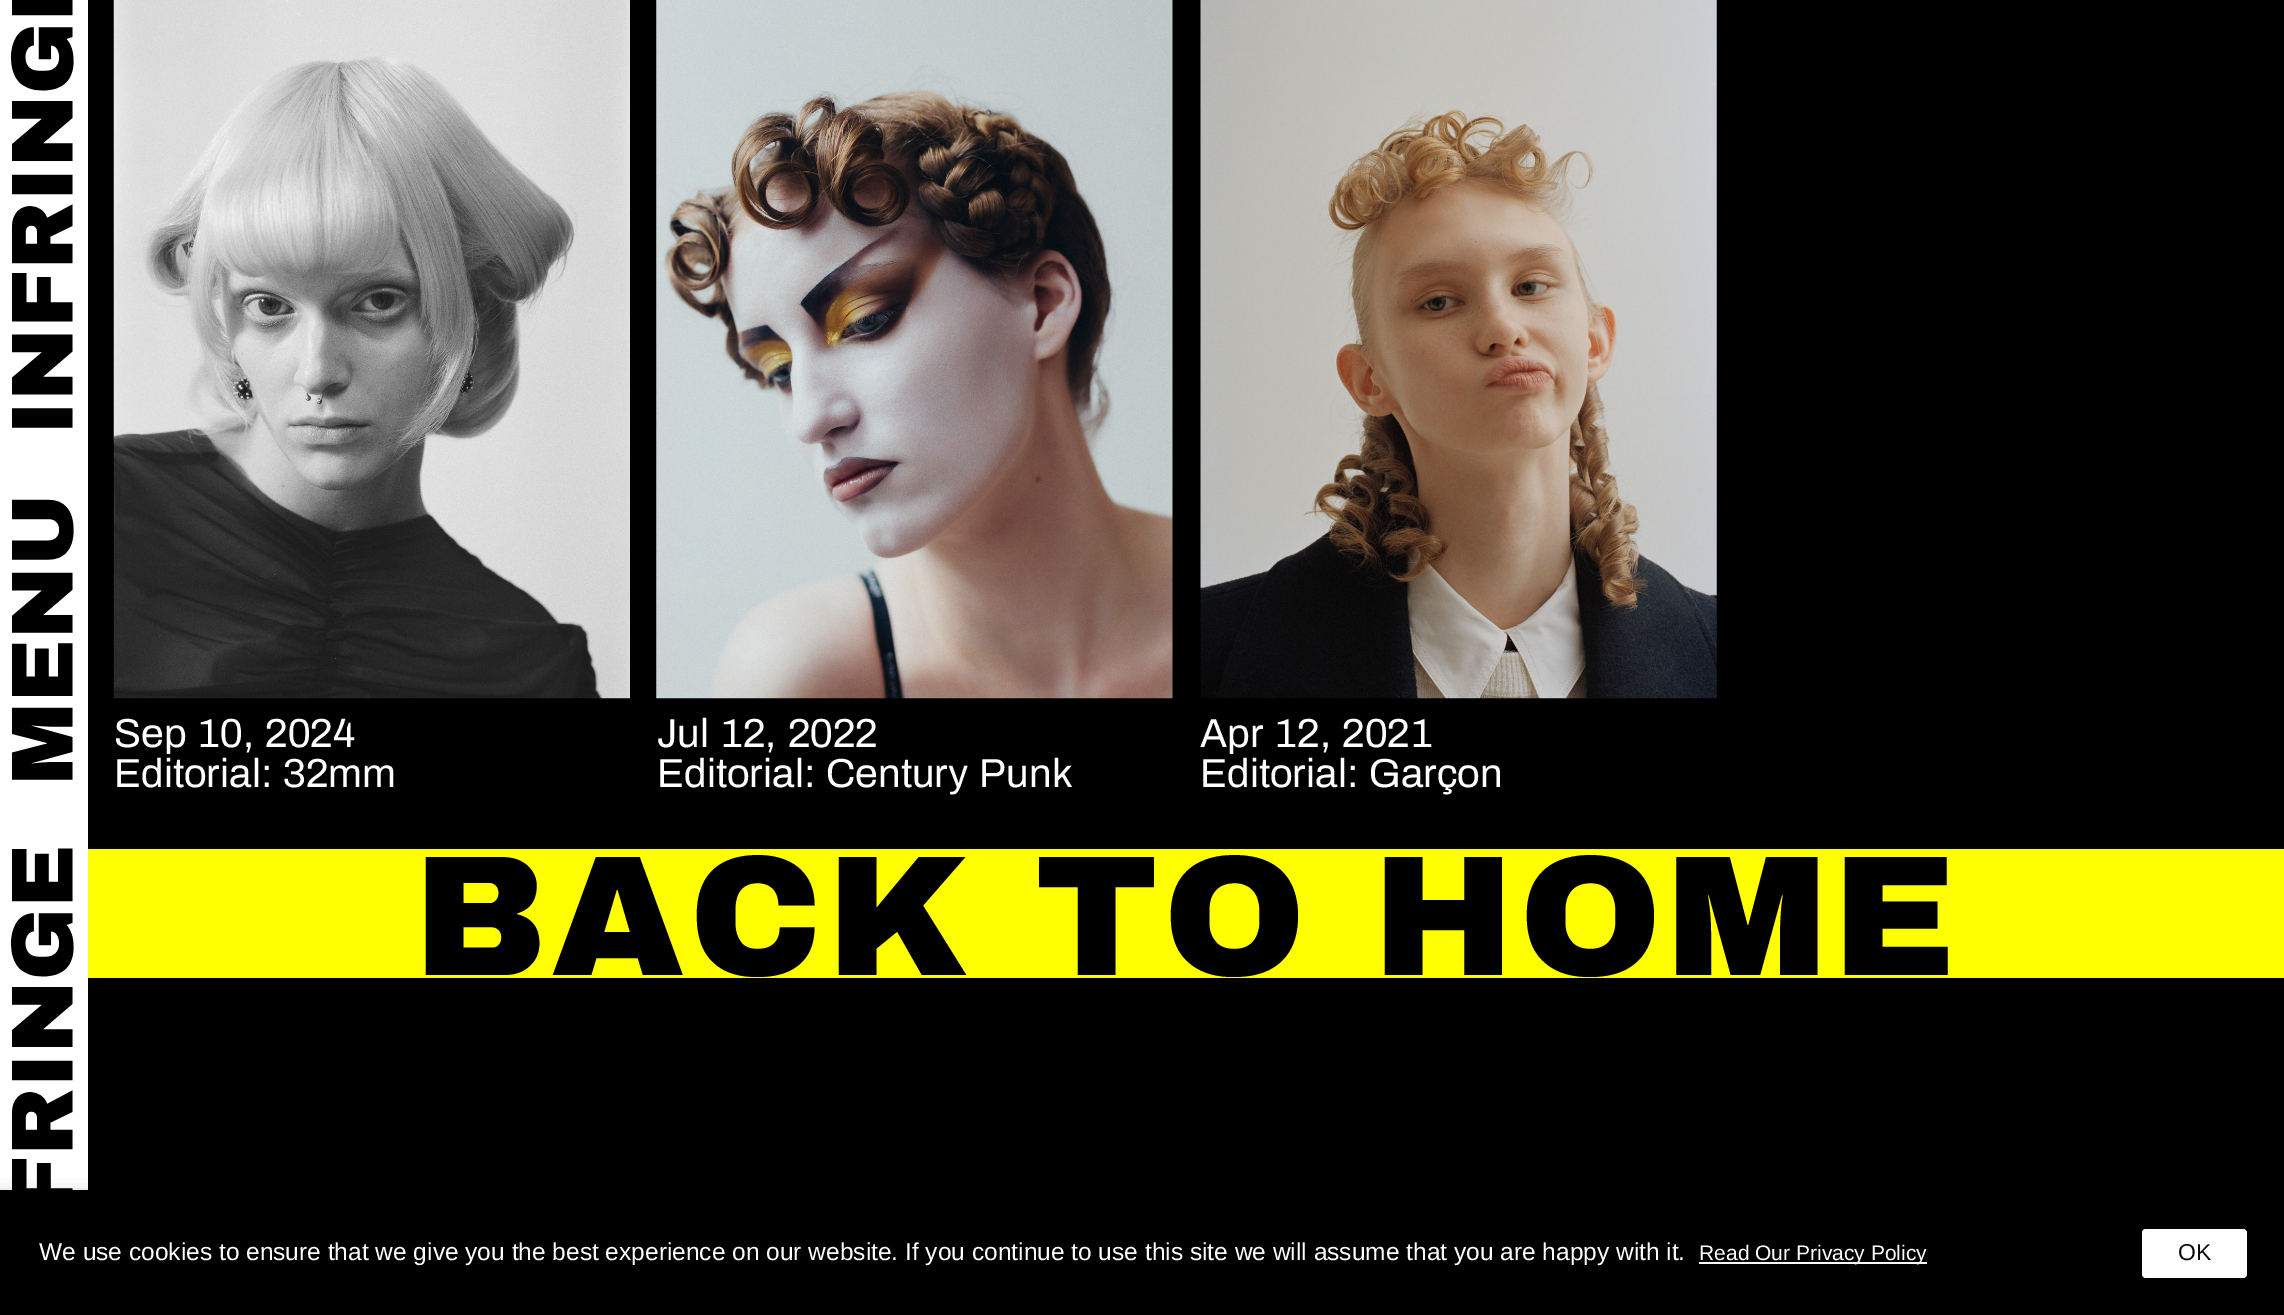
%!PS
<< /PageSize [2284 1315] /PageUsesTransparency true >> setpagedevice
/mt/moveto load def
/fl/fill load def
/co { dup -16 bitshift 255 div exch dup -8 bitshift 255 and 255 div exch 255 and 255 div setrgbcolor } def
/fn { [ exch dup neg 0 0 3 -1 roll 0 0 ] selectfont } def
/tx { co fn moveto show } def
/bx { co rectfill } def
/al { dup .setfillconstantalpha .setstrokeconstantalpha } def
/rr { 5 dict begin { /r /h /w /y /x } { exch def } forall
  x r add y moveto x w add y 2 copy h add r arct x w add y h add x 1 index r arct
  x y h add x y r arct x y 2 copy exch w add exch r arct closepath end } def
/sh { 12 dict begin { /a /b /q /h /w /y /x } { exch def } forall gsave /was 0 def
  9 -2 -9 { dup b mul 4 div /e exch def 1 sub .425 mul 2.718 exch exp 1 add a .99 .min exch div /now exch def
    1 1 now sub 1 was sub div sub al /was now def
    w h .min e 2 mul add 0 gt { x e sub y e sub w e 2 mul add h e 2 mul add
      q e add b .6 mul add w h .min 2 div e add .min 0 .max rr fill } if } for grestore end } def
/im { 5 dict begin { /h /w /y /x /name } { exch def } forall
  gsave x y translate w h scale
  w h 8 [w 0 0 h 0 0] name (r) file false 3 colorimage grestore end } def
0 .pushpdf14devicefilter
0 1315 translate 1 -1 scale
4 setmiterlimit
0 0 2284 1315 16#000000 bx
0 0 88 1190 16#FFFFFF bx
(media/1.raw) 10 0 64 1190 im
(media/2.raw) 113 0 517 699 im
(media/3.raw) 656 0 517 699 im
(media/4.raw) 1200 0 517 699 im
88 849 2196 129 16#FFFF01 bx
16#000000 co
0 1199 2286 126 0 9 .5 sh
1699 1262 228 2 16#FFFFFF bx
2142 1229 105 49 4 rr fl
(Sep 10, 2024) 114 747 /Archivo-Regular 40.6 16#FFFFFF tx
(Editorial: 32mm) 114 787 /Archivo-Regular 40.6 16#FFFFFF tx
(Jul 12, 2022) 657 747 /Archivo-Regular 40.6 16#FFFFFF tx
(Editorial: Century Punk) 657 787 /Archivo-Regular 40.6 16#FFFFFF tx
(Apr 12, 2021) 1200 747 /Archivo-Regular 40.6 16#FFFFFF tx
(Editorial: Garçon) 1200 787 /Archivo-Regular 40.6 16#FFFFFF tx
/ArchivoBlack-Black 171.5 fn
16#000000 co
413 975 mt 4.4 0 (BACK TO HOME) ashow
(We use cookies to ensure that we give you the best experience on our website. If you continue to use this site we will assume that you are happy with it.) 39 1260 /LiberationSans-Regular 24.5 16#FFFFFF tx
(Read Our Privacy Policy) 1699 1260 /LiberationSans-Regular 21 16#FFFFFF tx
(OK) 2178 1260 /LiberationSans-Regular 23 16#0A0A0A tx
.poppdf14devicefilter showpage
